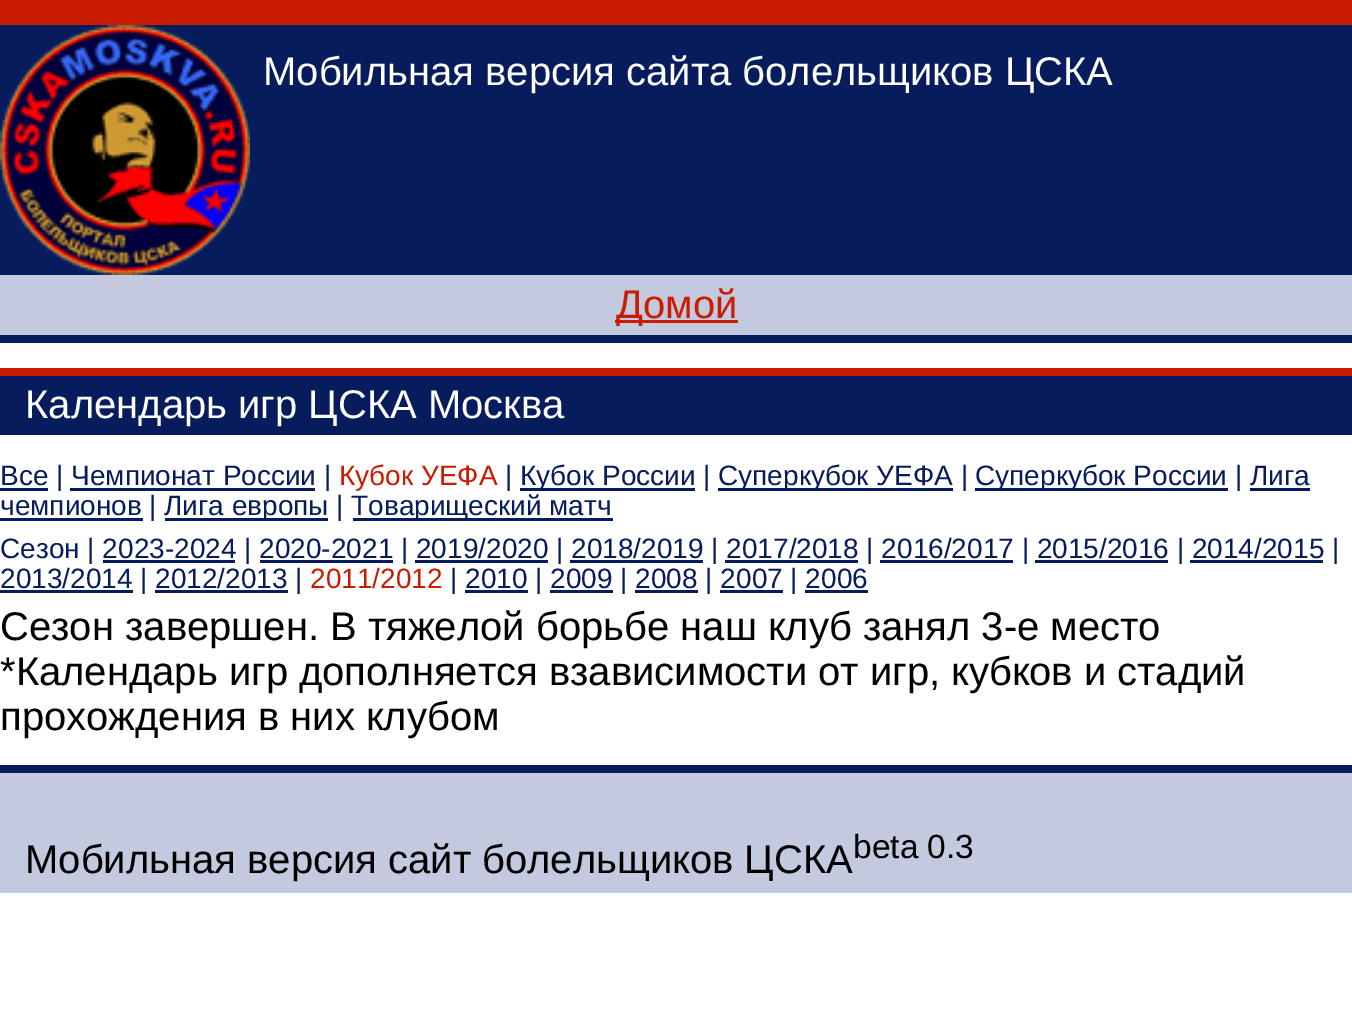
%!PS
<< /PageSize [1352 1018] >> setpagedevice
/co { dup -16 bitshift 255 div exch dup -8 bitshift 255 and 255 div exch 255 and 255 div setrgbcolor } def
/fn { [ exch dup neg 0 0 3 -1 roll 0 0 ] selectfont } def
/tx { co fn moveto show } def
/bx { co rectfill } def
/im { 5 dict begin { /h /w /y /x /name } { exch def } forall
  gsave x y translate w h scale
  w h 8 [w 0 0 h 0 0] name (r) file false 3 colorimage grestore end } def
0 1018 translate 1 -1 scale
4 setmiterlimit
0 0 1352 1018 16#FFFFFF bx
0 25 1352 250 16#071C5D bx
(media/1.raw) 0 25 250 250 im
0 0 1352 25 16#CA1C00 bx
0 275 1352 60 16#C3CADF bx
0 335 1352 8 16#071C5D bx
615 320 123 3 16#CA1C00 bx
0 376 1352 59 16#071C5D bx
0 368 1352 8 16#CA1C00 bx
0 488 48 3 16#071C5D bx
520 488 175 3 16#071C5D bx
718 488 235 3 16#071C5D bx
975 488 253 3 16#071C5D bx
70 488 245 3 16#071C5D bx
1250 488 60 3 16#071C5D bx
0 518 143 3 16#071C5D bx
165 518 163 3 16#071C5D bx
353 518 260 3 16#071C5D bx
103 560 132 3 16#071C5D bx
260 560 133 3 16#071C5D bx
415 560 133 3 16#071C5D bx
570 560 133 3 16#071C5D bx
725 560 133 3 16#071C5D bx
880 560 133 3 16#071C5D bx
1035 560 133 3 16#071C5D bx
1190 560 133 3 16#071C5D bx
0 590 133 3 16#071C5D bx
155 590 133 3 16#071C5D bx
465 590 63 3 16#071C5D bx
550 590 63 3 16#071C5D bx
635 590 63 3 16#071C5D bx
720 590 63 3 16#071C5D bx
805 590 63 3 16#071C5D bx
0 773 1352 120 16#C3CADF bx
0 765 1352 8 16#071C5D bx
(Мобильная версия сайта болельщиков ЦСКА) 263 85 /LiberationSans-Regular 40 16#FFFFFF tx
(Домой) 616 318 /LiberationSans-Regular 40 16#CA1C00 tx
(Календарь игр ЦСКА Москва) 25 418 /LiberationSans-Regular 40 16#FFFFFF tx
(Все | Чемпионат России |) 0 485 /LiberationSans-Regular 28 16#071C5D tx
(Кубок УЕФА) 339 485 /LiberationSans-Regular 28 16#CA1C00 tx
(|) 505 485 /LiberationSans-Regular 28 16#071C5D tx
(Кубок России |) 520 485 /LiberationSans-Regular 28 16#071C5D tx
(Суперкубок УЕФА |) 718 485 /LiberationSans-Regular 28 16#071C5D tx
(Суперкубок России | Лига) 975 485 /LiberationSans-Regular 28 16#071C5D tx
(чемпионов |) 0 515 /LiberationSans-Regular 28 16#071C5D tx
(Лига европы |) 164 515 /LiberationSans-Regular 28 16#071C5D tx
(Товарищеский матч) 351 515 /LiberationSans-Regular 28 16#071C5D tx
(Сезон | 2023-2024 | 2020-2021 | 2019/2020 | 2018/2019 | 2017/2018 | 2016/2017 | 2015/2016 | 2014/2015 |) 0 558 /LiberationSans-Regular 28 16#071C5D tx
(2013/2014 | 2012/2013 |) 0 588 /LiberationSans-Regular 28 16#071C5D tx
(2011/2012) 310 588 /LiberationSans-Regular 28 16#CA1C00 tx
(| 2010 | 2009 | 2008 | 2007 | 2006) 450 588 /LiberationSans-Regular 28 16#071C5D tx
(Сезон завершен. В тяжелой борьбе наш клуб занял 3-е место) 0 640 /LiberationSans-Regular 40 16#000000 tx
(*Календарь игр дополняется взависимости от игр, кубков и стадий) 0 685 /LiberationSans-Regular 40 16#000000 tx
(прохождения в них клубом) 0 730 /LiberationSans-Regular 40 16#000000 tx
(Мобильная версия сайт болельщиков ЦСКА) 25 873 /LiberationSans-Regular 40 16#000000 tx
(beta 0.3) 853 858 /LiberationSans-Regular 33.5 16#000000 tx
showpage
